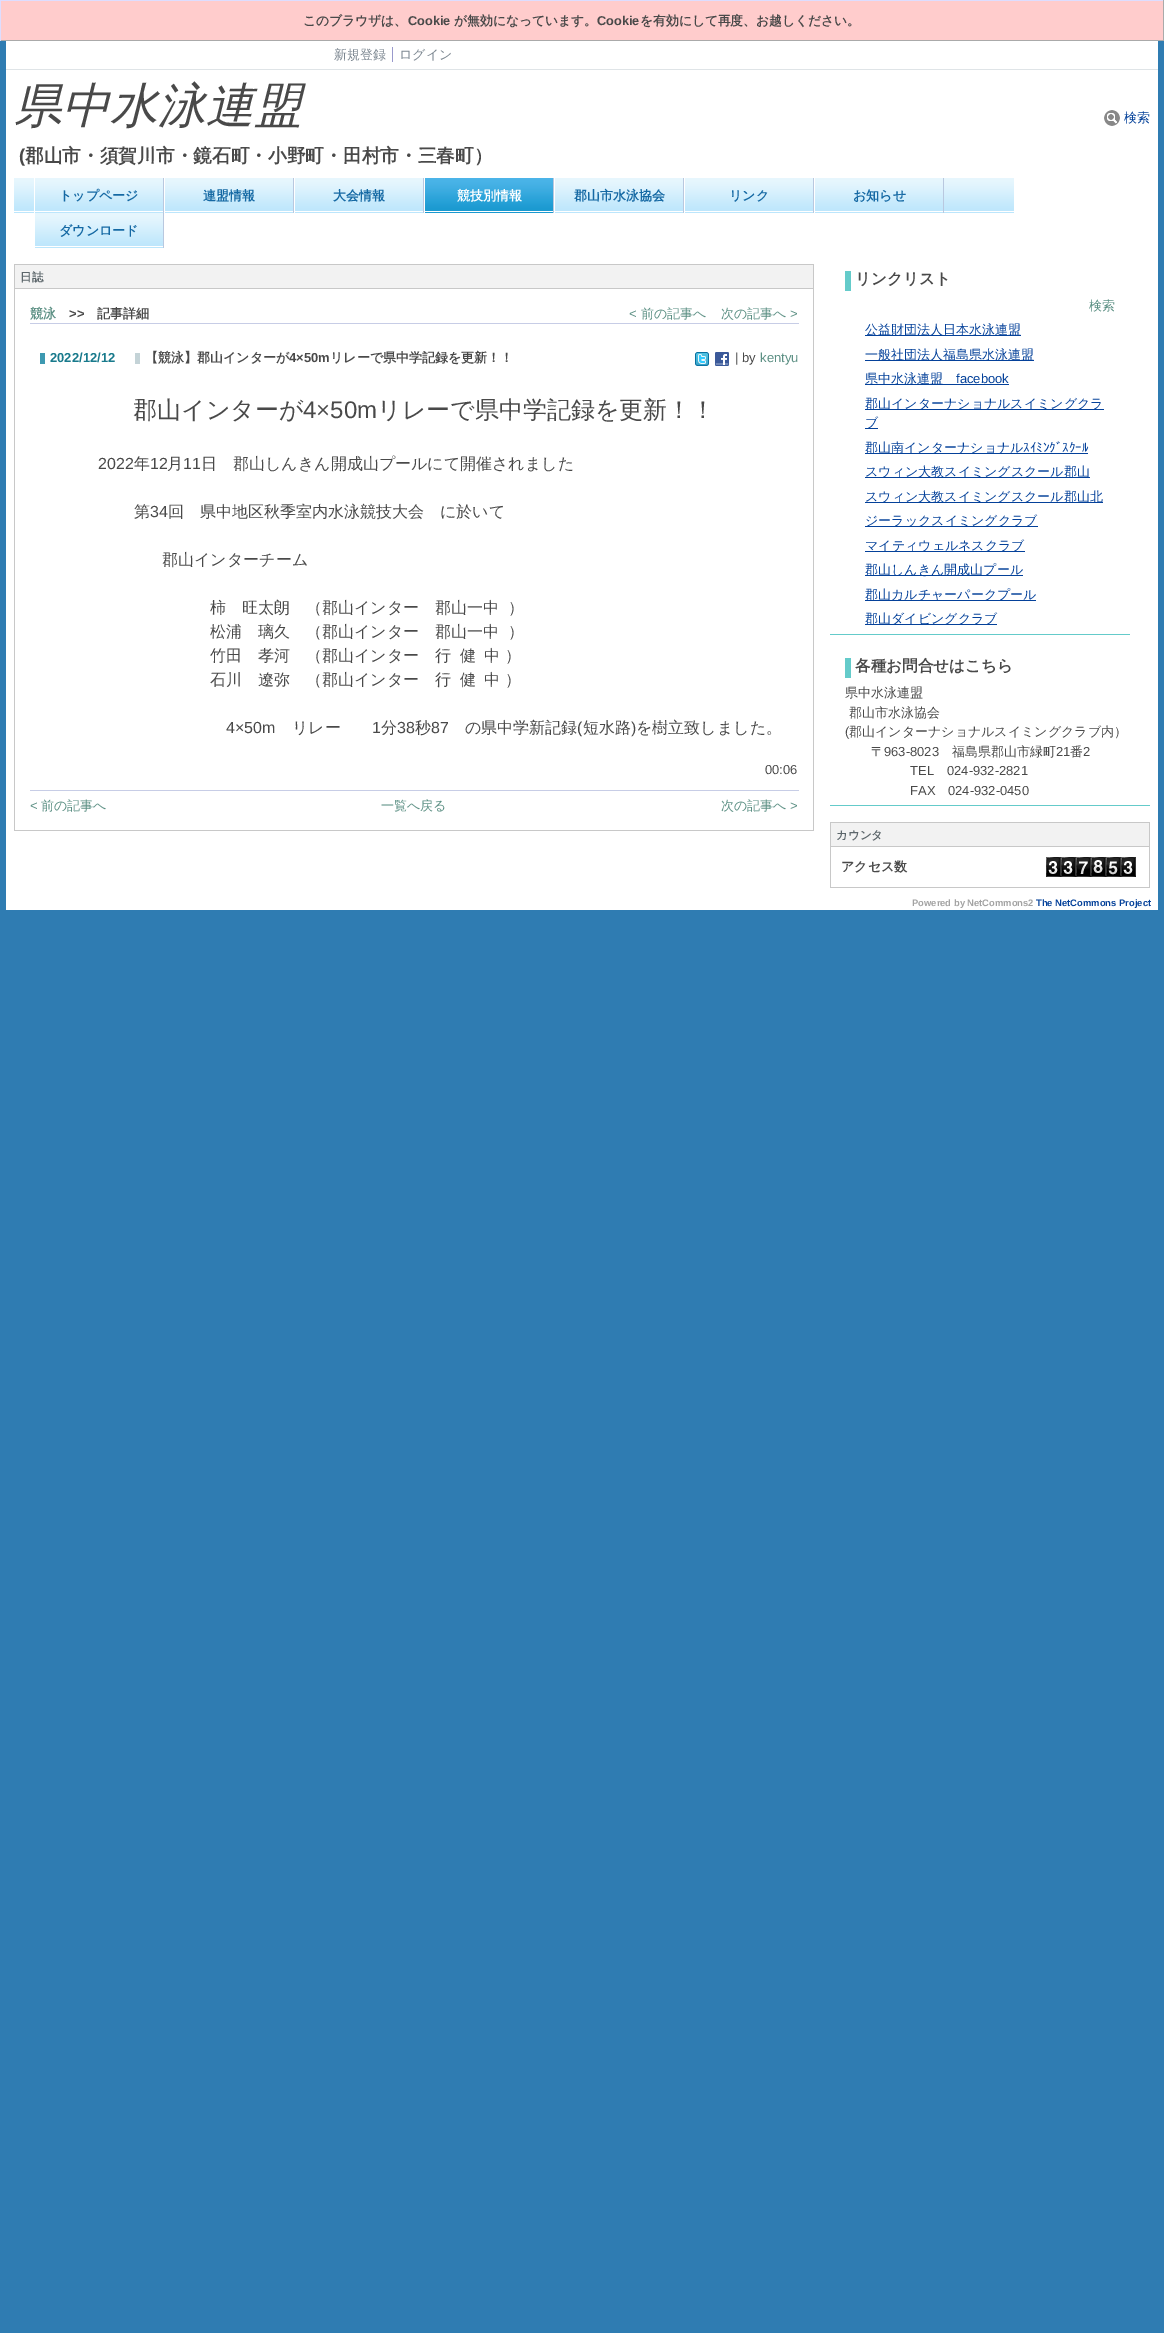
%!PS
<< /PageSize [1164 2333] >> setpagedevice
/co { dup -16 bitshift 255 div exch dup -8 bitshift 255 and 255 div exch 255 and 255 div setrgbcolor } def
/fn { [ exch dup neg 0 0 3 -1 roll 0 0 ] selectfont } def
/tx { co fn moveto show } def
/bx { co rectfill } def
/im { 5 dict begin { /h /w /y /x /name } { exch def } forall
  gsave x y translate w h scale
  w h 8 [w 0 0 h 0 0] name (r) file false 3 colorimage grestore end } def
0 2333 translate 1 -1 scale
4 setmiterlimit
0 0 1164 2333 16#2F7CB2 bx
1 1 1162 39 16#FFCCCC bx
0 0 1164 1 16#DDDDFF bx
1163 0 1 41 16#AAAAAA bx
0 40 1164 1 16#AAAAAA bx
0 0 1 41 16#DDDDFF bx
6 41 1152 28 16#FFFFFF bx
6 69 1152 1 16#DFE4E7 bx
392 47 1 15 16#9999CC bx
6 70 1152 186 16#FFFFFF bx
(media/1.raw) 14 178 1000 35 im
163 178 1 70 16#B9C8DF bx
34 178 1 35 16#FFFFFF bx
293 178 1 35 16#B9C8DF bx
164 178 1 35 16#FFFFFF bx
423 178 1 35 16#B9C8DF bx
294 178 1 35 16#FFFFFF bx
425 212 128 1 16#1A99D0 bx
(media/2.raw) 425 178 128 34 im
553 178 1 35 16#B9C8DF bx
424 178 1 35 16#FFFFFF bx
683 178 1 35 16#B9C8DF bx
554 178 1 35 16#FFFFFF bx
813 178 1 35 16#B9C8DF bx
684 178 1 35 16#FFFFFF bx
943 178 1 35 16#B9C8DF bx
814 178 1 35 16#FFFFFF bx
(media/3.raw) 35 213 128 35 im
(media/4.raw) 1104 110 16 16 im
6 256 1152 654 16#FFFFFF bx
14 264 800 1 16#C8C8C8 bx
813 264 1 567 16#C8C8C8 bx
14 830 800 1 16#C8C8C8 bx
14 264 1 567 16#C8C8C8 bx
15 265 798 23 16#F2F2F2 bx
14 288 800 1 16#C8C8C8 bx
40 353 5 11 16#3D99B1 bx
135 353 5 11 16#C4D3D7 bx
30 323 769 1 16#C7CDE6 bx
(media/5.raw) 695 352 14 14 im
(media/6.raw) 715 352 14 14 im
30 790 769 1 16#C7CDE6 bx
845 271 6 20 16#64CBCA bx
865 335 156 1 16#04419A bx
865 360 169 1 16#04419A bx
865 384 144 1 16#04419A bx
865 409 239 1 16#04419A bx
865 428 13 1 16#04419A bx
865 453 223 1 16#04419A bx
865 477 225 1 16#04419A bx
865 502 238 1 16#04419A bx
865 526 173 1 16#04419A bx
865 551 160 1 16#04419A bx
865 575 158 1 16#04419A bx
865 600 171 1 16#04419A bx
865 624 132 1 16#04419A bx
830 634 300 1 16#64CBCA bx
845 658 6 20 16#64CBCA bx
830 805 320 1 16#64CBCA bx
830 822 320 1 16#C8C8C8 bx
1149 822 1 66 16#C8C8C8 bx
830 887 320 1 16#C8C8C8 bx
830 822 1 66 16#C8C8C8 bx
831 823 318 23 16#F2F2F2 bx
830 846 320 1 16#C8C8C8 bx
(media/7.raw) 1046 857 15 20 im
(media/7.raw) 1061 857 15 20 im
(media/8.raw) 1076 857 15 20 im
(media/9.raw) 1091 857 15 20 im
(media/10.raw) 1106 857 15 20 im
(media/7.raw) 1121 857 15 20 im
(このブラウザは、) 303 25 /WenQuanYiZenHei-Bold 12.75 16#494949 tx
(Cookie) 408 25 /LiberationSans-Bold 12.75 16#494949 tx
(が無効になっています。) 454 25 /WenQuanYiZenHei-Bold 12.75 16#494949 tx
(Cookie) 597 25 /LiberationSans-Bold 12.75 16#494949 tx
(を有効にして再度、お越しください。) 640 25 /WenQuanYiZenHei-Bold 12.75 16#494949 tx
(新規登録) 334 59 /WenQuanYiZenHei-Medium 13 16#7A858F tx
(ログイン) 399 59 /WenQuanYiZenHei-Medium 13 16#7A858F tx
(県中水泳連盟) 14 122 /WenQuanYiZenHei-MediumItalic 48 16#494949 tx
(\() 19 162 /LiberationSans-Bold 18.7 16#494949 tx
(郡山市・須賀川市・鏡石町・小野町・田村市・三春町）) 25 162 /WenQuanYiZenHei-Bold 18.7 16#494949 tx
(トップページ) 59 200 /WenQuanYiZenHei-Bold 13 16#1569A4 tx
(連盟情報) 203 200 /WenQuanYiZenHei-Bold 13 16#1569A4 tx
(大会情報) 333 200 /WenQuanYiZenHei-Bold 13 16#1569A4 tx
(競技別情報) 457 200 /WenQuanYiZenHei-Bold 13 16#FFFFFF tx
(郡山市水泳協会) 574 200 /WenQuanYiZenHei-Bold 13 16#1569A4 tx
(リンク) 729 200 /WenQuanYiZenHei-Bold 13 16#1569A4 tx
(お知らせ) 853 200 /WenQuanYiZenHei-Bold 13 16#1569A4 tx
(ダウンロード) 59 235 /WenQuanYiZenHei-Bold 13 16#1569A4 tx
(検索) 1124 122 /WenQuanYiZenHei-Medium 13 16#04419A tx
(日誌) 20 281 /WenQuanYiZenHei-Bold 11.5 16#5C666B tx
(競泳) 30 318 /WenQuanYiZenHei-Bold 13 16#5C9084 tx
(>>) 69 318 /LiberationSans-Bold 13 16#494949 tx
(記事詳細) 97 318 /WenQuanYiZenHei-Bold 13 16#494949 tx
(<) 629 318 /LiberationSans-Regular 13 16#5C9084 tx
(前の記事へ) 641 318 /WenQuanYiZenHei-Medium 13 16#5C9084 tx
(次の記事へ) 721 318 /WenQuanYiZenHei-Medium 13 16#5C9084 tx
(>) 790 318 /LiberationSans-Regular 13 16#5C9084 tx
(2022/12/12) 50 362 /LiberationSans-Bold 13 16#187A8C tx
(【競泳】郡山インターが) 145 362 /WenQuanYiZenHei-Bold 13 16#494949 tx
(4×50m) 289 362 /LiberationSans-Bold 13 16#494949 tx
(リレーで県中学記録を更新！！) 330 362 /WenQuanYiZenHei-Bold 13 16#494949 tx
(| by) 735 362 /LiberationSans-Regular 13 16#494949 tx
(kentyu) 760 362 /LiberationSans-Regular 13 16#5C9084 tx
(郡山インターが) 133 418 /WenQuanYiZenHei-Medium 24 16#494949 tx
(4×50m) 303 418 /LiberationSans-Regular 24 16#494949 tx
(リレーで県中学記録を更新！！) 377 418 /WenQuanYiZenHei-Medium 24 16#494949 tx
(2022) 98 469 /LiberationSans-Regular 16 16#494949 tx
(年) 134 469 /WenQuanYiZenHei-Medium 16 16#494949 tx
(12) 150 469 /LiberationSans-Regular 16 16#494949 tx
(月) 167 469 /WenQuanYiZenHei-Medium 16 16#494949 tx
(11) 183 469 /LiberationSans-Regular 16 16#494949 tx
(日　郡山しんきん開成山プールにて開催されました) 201 469 /WenQuanYiZenHei-Medium 16 16#494949 tx
(第) 134 517 /WenQuanYiZenHei-Medium 16 16#494949 tx
(34) 150 517 /LiberationSans-Regular 16 16#494949 tx
(回　県中地区秋季室内水泳競技大会　に於いて) 168 517 /WenQuanYiZenHei-Medium 16 16#494949 tx
(郡山インターチーム) 162 565 /WenQuanYiZenHei-Medium 16 16#494949 tx
(柿　旺太朗　（郡山インター　郡山一中) 210 613 /WenQuanYiZenHei-Medium 16 16#494949 tx
(）) 508 613 /WenQuanYiZenHei-Medium 16 16#494949 tx
(松浦　璃久　（郡山インター　郡山一中) 210 637 /WenQuanYiZenHei-Medium 16 16#494949 tx
(）) 508 637 /WenQuanYiZenHei-Medium 16 16#494949 tx
(竹田　孝河　（郡山インター　行) 210 661 /WenQuanYiZenHei-Medium 16 16#494949 tx
(健) 460 661 /WenQuanYiZenHei-Medium 16 16#494949 tx
(中 ）) 484 661 /WenQuanYiZenHei-Medium 16 16#494949 tx
(石川　遼弥　（郡山インター　行) 210 685 /WenQuanYiZenHei-Medium 16 16#494949 tx
(健) 460 685 /WenQuanYiZenHei-Medium 16 16#494949 tx
(中 ）) 484 685 /WenQuanYiZenHei-Medium 16 16#494949 tx
(4×50m) 226 733 /LiberationSans-Regular 16 16#494949 tx
(リレー) 292 733 /WenQuanYiZenHei-Medium 16 16#494949 tx
(1) 372 733 /LiberationSans-Regular 16 16#494949 tx
(分) 381 733 /WenQuanYiZenHei-Medium 16 16#494949 tx
(38) 397 733 /LiberationSans-Regular 16 16#494949 tx
(秒) 415 733 /WenQuanYiZenHei-Medium 16 16#494949 tx
(87) 431 733 /LiberationSans-Regular 16 16#494949 tx
(の県中学新記録) 465 733 /WenQuanYiZenHei-Medium 16 16#494949 tx
(\() 577 733 /LiberationSans-Regular 16 16#494949 tx
(短水路) 583 733 /WenQuanYiZenHei-Medium 16 16#494949 tx
(\)) 631 733 /LiberationSans-Regular 16 16#494949 tx
(を樹立致しました。) 636 733 /WenQuanYiZenHei-Medium 16 16#494949 tx
(00:06) 765 774 /LiberationSans-Regular 13 16#494949 tx
(<) 30 810 /LiberationSans-Regular 13 16#5C9084 tx
(前の記事へ) 41 810 /WenQuanYiZenHei-Medium 13 16#5C9084 tx
(一覧へ戻る) 381 810 /WenQuanYiZenHei-Medium 13 16#5C9084 tx
(次の記事へ) 721 810 /WenQuanYiZenHei-Medium 13 16#5C9084 tx
(>) 790 810 /LiberationSans-Regular 13 16#5C9084 tx
(リンクリスト) 855 284 /WenQuanYiZenHei-Bold 15.6 16#494949 tx
(検索) 1089 310 /WenQuanYiZenHei-Medium 13 16#5C9084 tx
(公益財団法人日本水泳連盟) 865 334 /WenQuanYiZenHei-Medium 13 16#04419A tx
(一般社団法人福島県水泳連盟) 865 359 /WenQuanYiZenHei-Medium 13 16#04419A tx
(県中水泳連盟) 865 383 /WenQuanYiZenHei-Medium 13 16#04419A tx
(facebook) 956 383 /LiberationSans-Regular 13 16#04419A tx
(郡山インターナショナルスイミングクラ) 865 408 /WenQuanYiZenHei-Medium 13 16#04419A tx
(ブ) 865 427 /WenQuanYiZenHei-Medium 13 16#04419A tx
(郡山南インターナショナル) 865 452 /WenQuanYiZenHei-Medium 13 16#04419A tx
(ｽｲﾐﾝｸﾞｽｸｰﾙ) 1023 452 /IPAPGothic-Regular 13 16#04419A tx
(スウィン大教スイミングスクール郡山) 865 476 /WenQuanYiZenHei-Medium 13 16#04419A tx
(スウィン大教スイミングスクール郡山北) 865 501 /WenQuanYiZenHei-Medium 13 16#04419A tx
(ジーラックスイミングクラブ) 865 525 /WenQuanYiZenHei-Medium 13 16#04419A tx
(マイティウェルネスクラブ) 865 550 /WenQuanYiZenHei-Medium 13 16#04419A tx
(郡山しんきん開成山プール) 865 574 /WenQuanYiZenHei-Medium 13 16#04419A tx
(郡山カルチャーパークプール) 865 599 /WenQuanYiZenHei-Medium 13 16#04419A tx
(郡山ダイビングクラブ) 865 623 /WenQuanYiZenHei-Medium 13 16#04419A tx
(各種お問合せはこちら) 855 671 /WenQuanYiZenHei-Bold 15.6 16#494949 tx
(県中水泳連盟) 845 697 /WenQuanYiZenHei-Medium 13 16#494949 tx
(郡山市水泳協会) 849 717 /WenQuanYiZenHei-Medium 13 16#494949 tx
(\() 845 736 /LiberationSans-Regular 13 16#494949 tx
(郡山インターナショナルスイミングクラブ内）) 849 736 /WenQuanYiZenHei-Medium 13 16#494949 tx
(〒) 871 756 /WenQuanYiZenHei-Medium 13 16#494949 tx
(963-8023) 884 756 /LiberationSans-Regular 13 16#494949 tx
(福島県郡山市緑町) 952 756 /WenQuanYiZenHei-Medium 13 16#494949 tx
(21) 1056 756 /LiberationSans-Regular 13 16#494949 tx
(番) 1070 756 /WenQuanYiZenHei-Medium 13 16#494949 tx
(2) 1083 756 /LiberationSans-Regular 13 16#494949 tx
(TEL) 910 775 /LiberationSans-Regular 13 16#494949 tx
(024-932-2821) 947 775 /LiberationSans-Regular 13 16#494949 tx
(FAX) 910 795 /LiberationSans-Regular 13 16#494949 tx
(024-932-0450) 948 795 /LiberationSans-Regular 13 16#494949 tx
(カウンタ) 836 839 /WenQuanYiZenHei-Bold 11.5 16#5C666B tx
(アクセス数) 841 871 /WenQuanYiZenHei-Bold 13 16#494949 tx
(Powered by NetCommons2) 912 906 /LiberationSans-Bold 9.4 16#A3A3A3 tx
(The NetCommons Project) 1036 906 /LiberationSans-Bold 9.4 16#04419A tx
showpage
